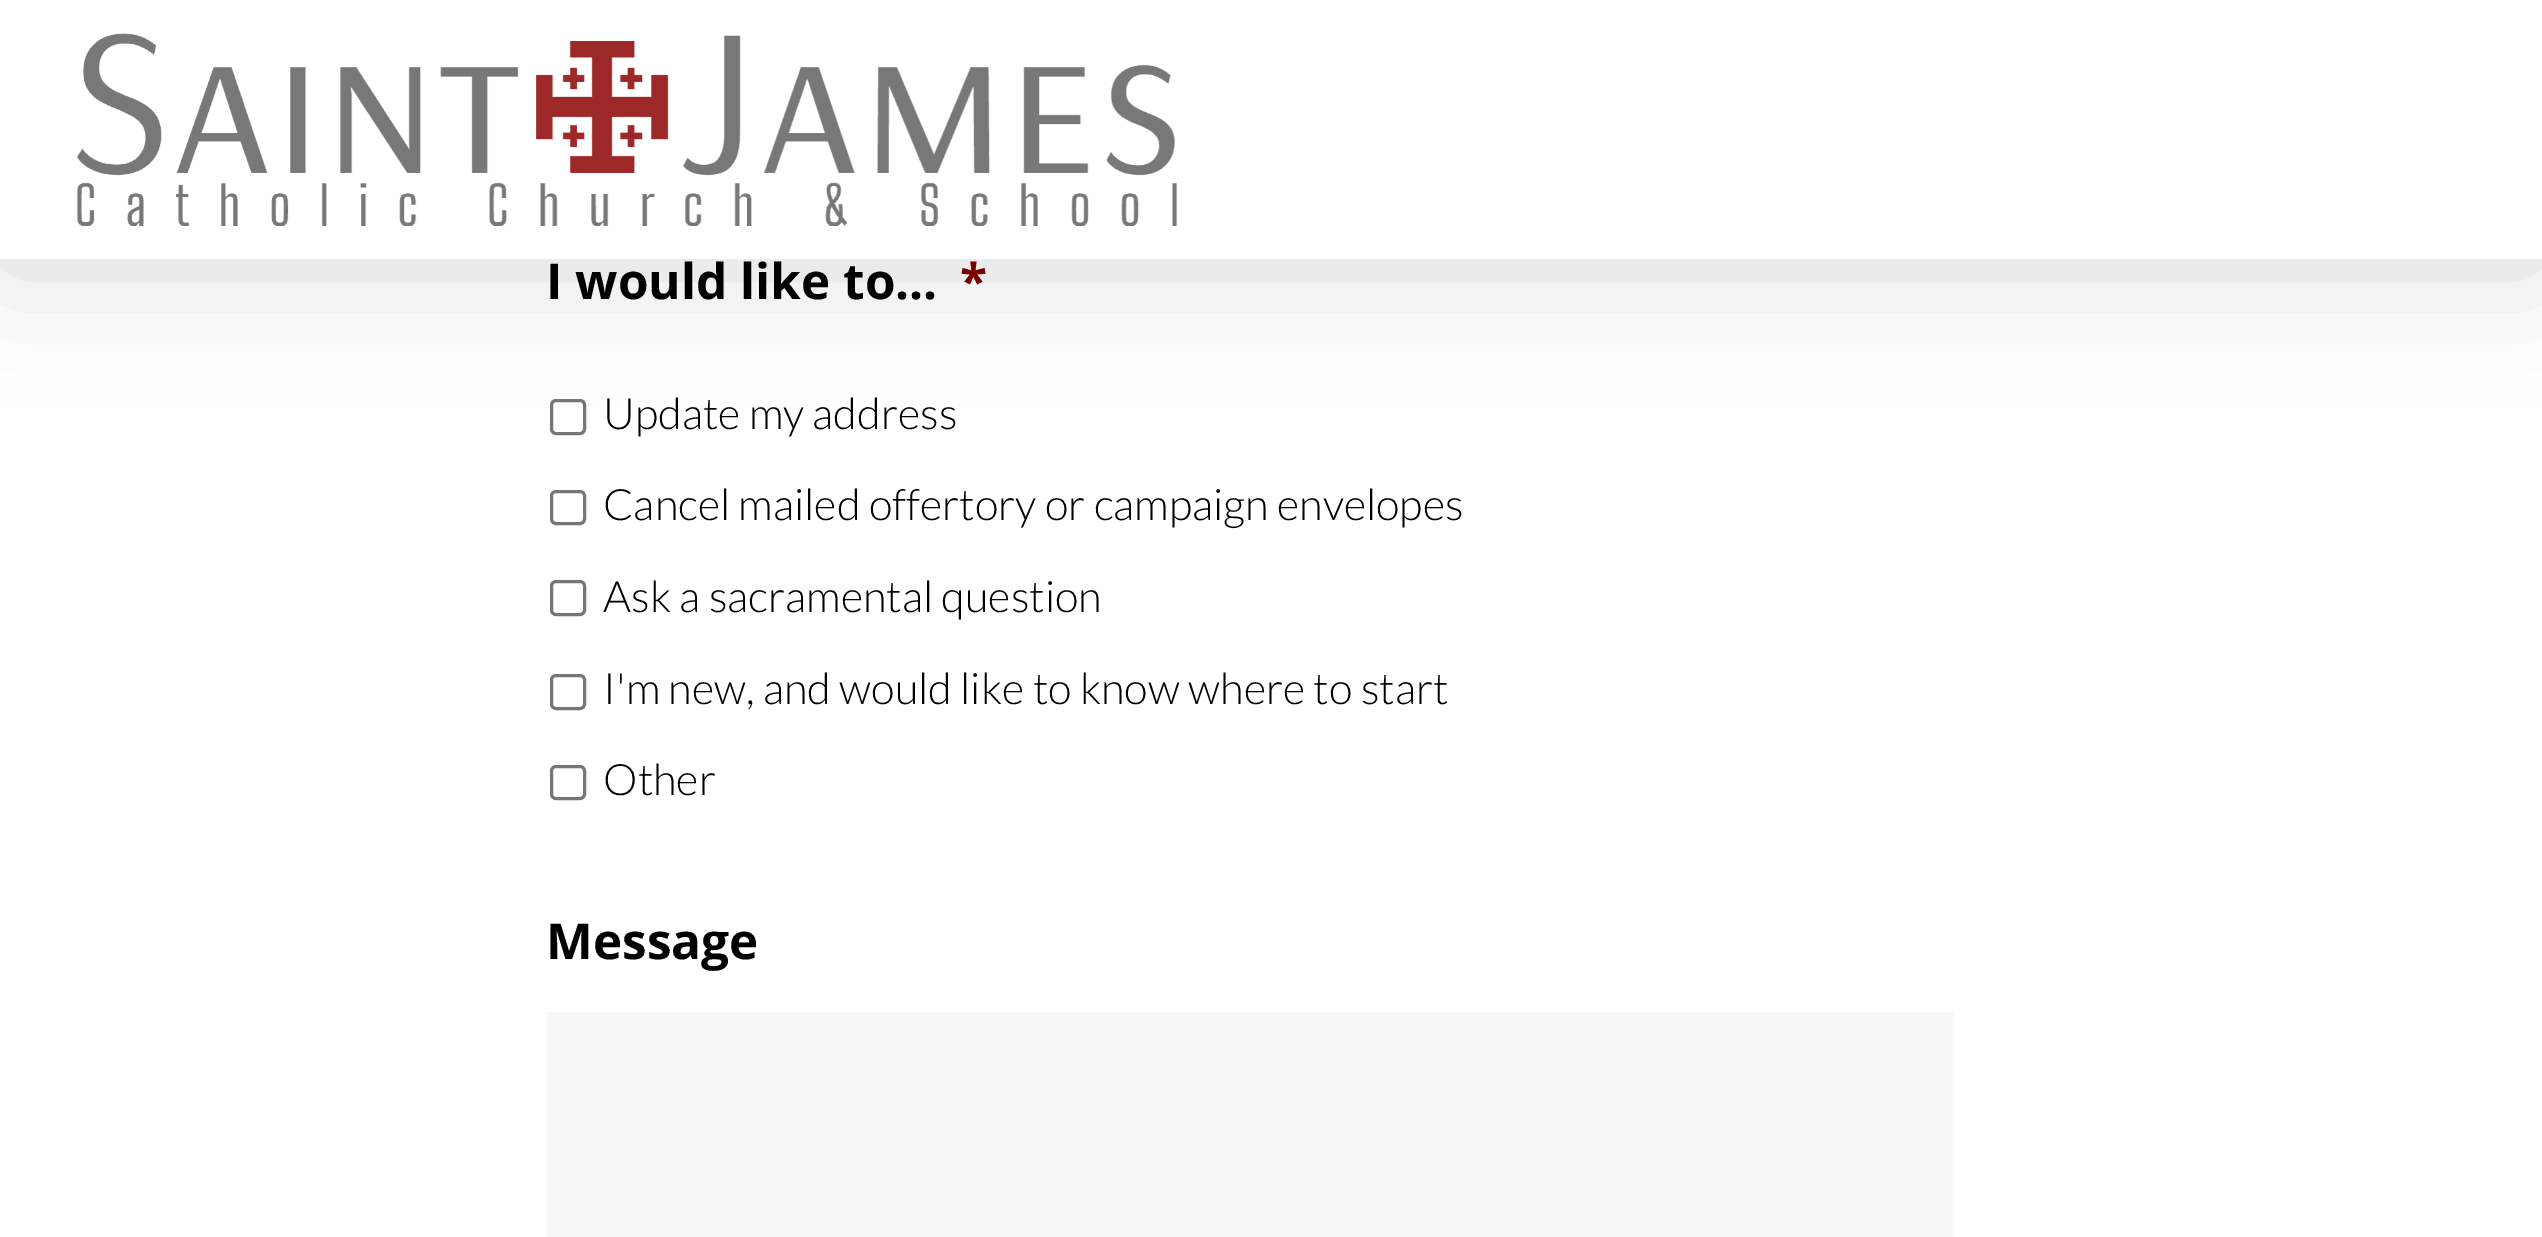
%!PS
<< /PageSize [2542 1237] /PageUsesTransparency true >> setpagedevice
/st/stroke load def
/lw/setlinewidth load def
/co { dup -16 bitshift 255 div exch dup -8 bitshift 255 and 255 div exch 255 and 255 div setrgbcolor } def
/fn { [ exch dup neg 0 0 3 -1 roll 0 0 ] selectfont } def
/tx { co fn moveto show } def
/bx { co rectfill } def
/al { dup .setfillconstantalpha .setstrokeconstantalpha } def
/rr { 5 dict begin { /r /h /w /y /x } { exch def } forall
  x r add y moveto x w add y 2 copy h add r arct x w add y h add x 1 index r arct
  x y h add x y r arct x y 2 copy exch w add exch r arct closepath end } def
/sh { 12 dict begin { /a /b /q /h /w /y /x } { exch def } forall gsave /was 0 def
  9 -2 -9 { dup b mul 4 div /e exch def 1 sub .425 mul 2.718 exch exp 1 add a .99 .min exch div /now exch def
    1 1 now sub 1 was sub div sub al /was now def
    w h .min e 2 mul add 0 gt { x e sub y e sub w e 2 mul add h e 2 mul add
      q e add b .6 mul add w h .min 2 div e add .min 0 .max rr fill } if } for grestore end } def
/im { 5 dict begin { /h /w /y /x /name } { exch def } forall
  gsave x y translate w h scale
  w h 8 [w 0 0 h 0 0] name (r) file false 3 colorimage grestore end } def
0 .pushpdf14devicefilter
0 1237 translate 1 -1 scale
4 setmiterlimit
0 0 2542 1237 16#FFFFFF bx
16#767676 co
3 lw
551.5 400.5 33 33 4.5 rr st
16#000000 co
0 8 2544 259 0 62 .15 sh
0 0 2542 259 16#FFFFFF bx
(media/1.raw) 77 33 1100 193 im
16#767676 co
551.5 491.5 33 32 4.5 rr st
551.5 581.5 33 33 4.5 rr st
551.5 675.5 33 33 4.5 rr st
551.5 766.5 33 32 4.5 rr st
547 1012 1406 225 16#F7F7F7 bx
(I would like to...) 546 299 /OpenSans-Bold 49.5 16#000000 tx
(*) 960 299 /OpenSans-Bold 49.5 16#790000 tx
(Update my address) 603 429 /Lato-Light 43.3 16#000000 tx
(Cancel mailed offertory or campaign envelopes) 603 520 /Lato-Light 43.3 16#000000 tx
(Ask a sacramental question) 603 612 /Lato-Light 43.3 16#000000 tx
(I'm new, and would like to know where to start) 603 704 /Lato-Light 43.3 16#000000 tx
(Other) 603 795 /Lato-Light 43.3 16#000000 tx
(Message) 546 959 /OpenSans-Bold 49.5 16#000000 tx
.poppdf14devicefilter showpage
